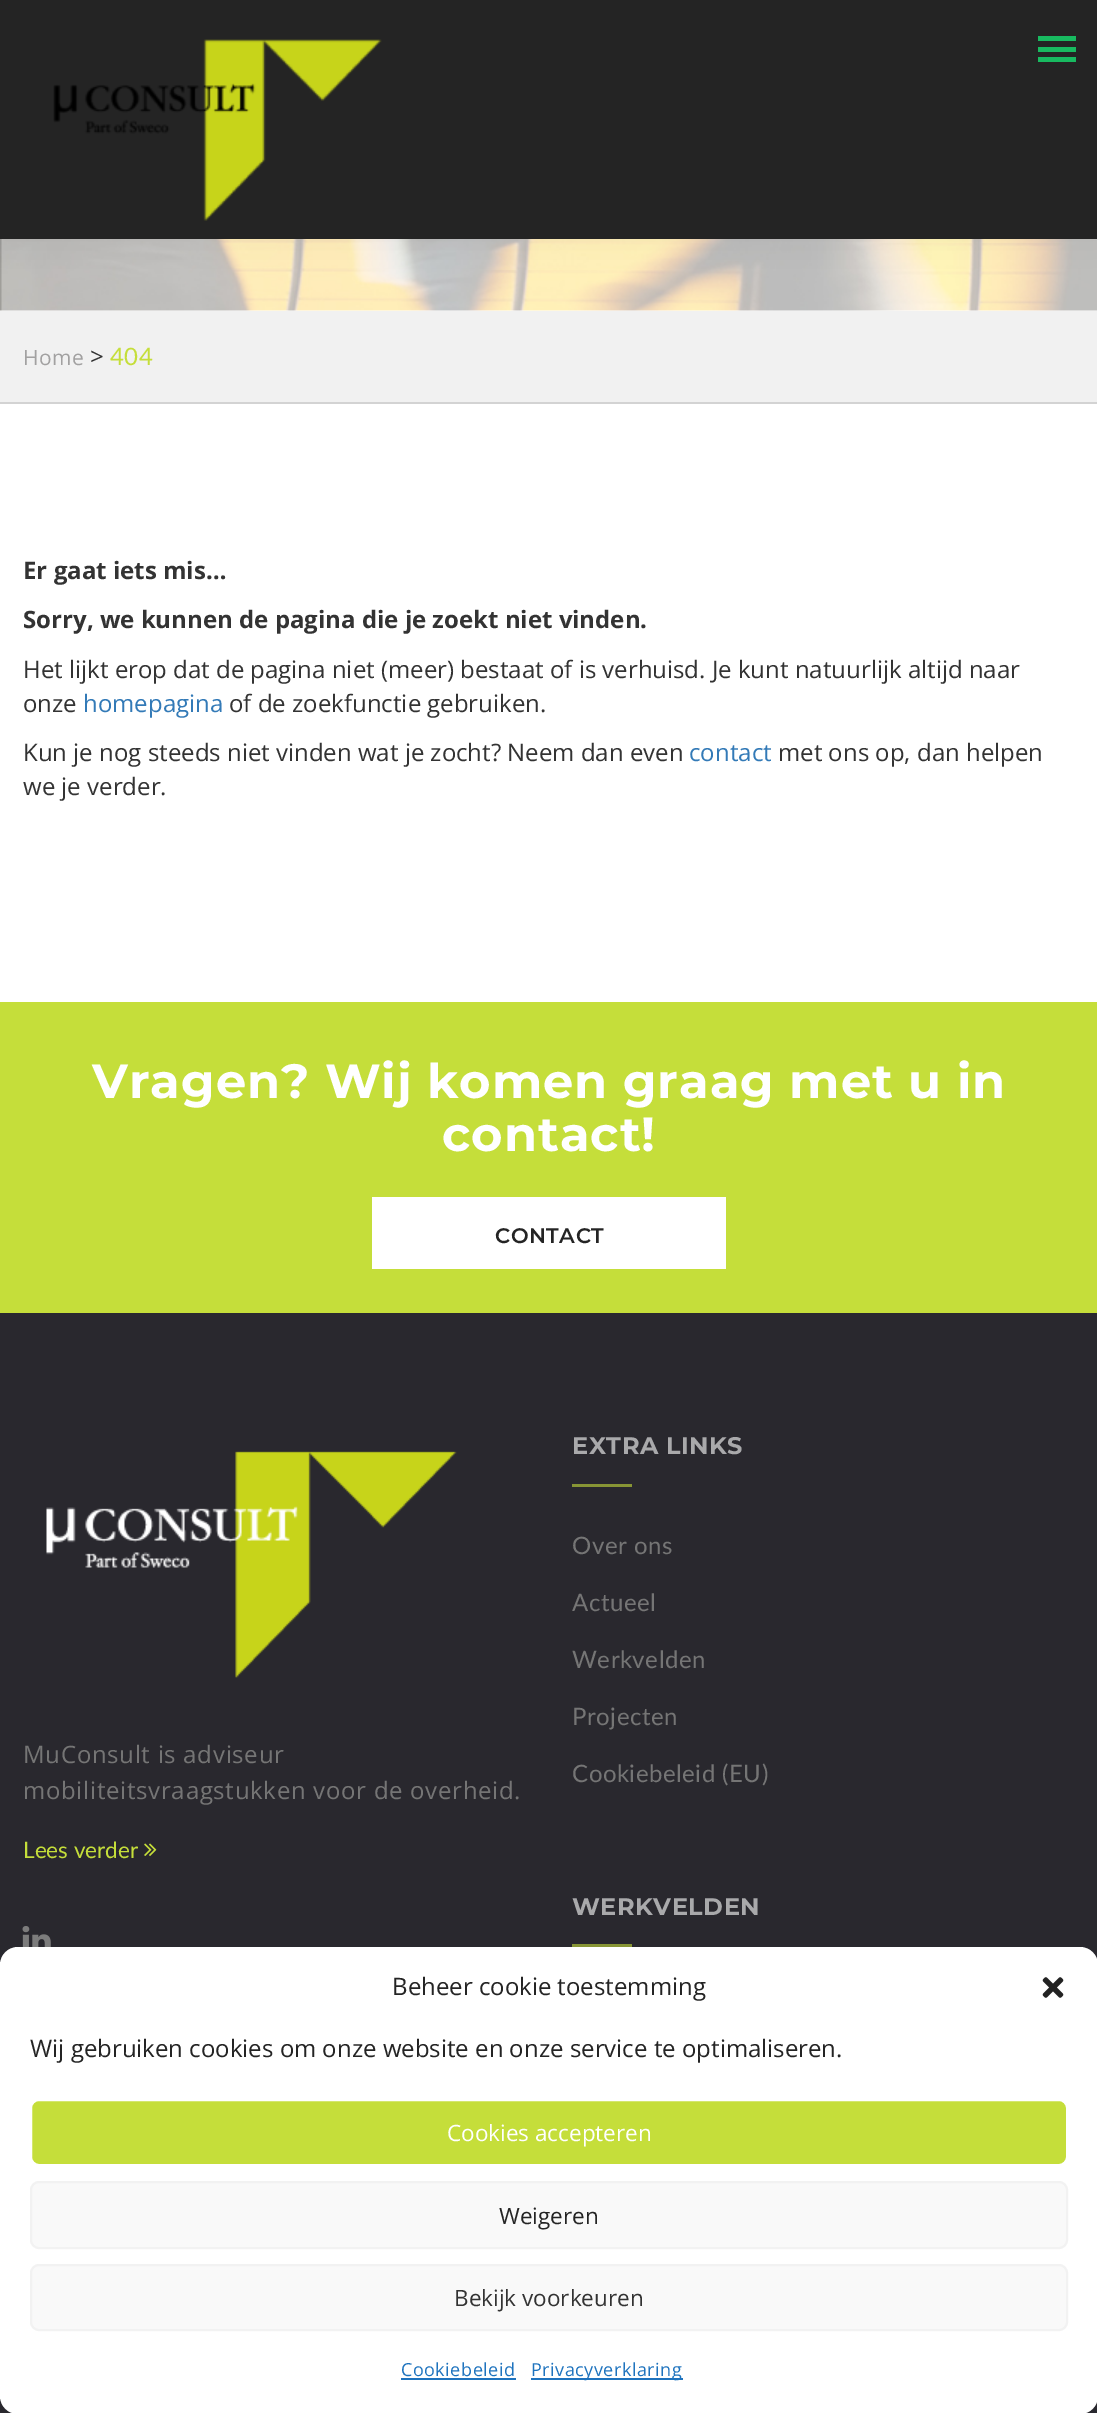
%!PS
<< /PageSize [1097 2413] /PageUsesTransparency true >> setpagedevice
/mt/moveto load def
/fl/fill load def
/st/stroke load def
/gs/gsave load def
/gr/grestore load def
/lw/setlinewidth load def
/co { dup -16 bitshift 255 div exch dup -8 bitshift 255 and 255 div exch 255 and 255 div setrgbcolor } def
/fn { [ exch dup neg 0 0 3 -1 roll 0 0 ] selectfont } def
/tx { co fn moveto show } def
/bx { co rectfill } def
/al { dup .setfillconstantalpha .setstrokeconstantalpha } def
/rr { 5 dict begin { /r /h /w /y /x } { exch def } forall
  x r add y moveto x w add y 2 copy h add r arct x w add y h add x 1 index r arct
  x y h add x y r arct x y 2 copy exch w add exch r arct closepath end } def
/sh { 12 dict begin { /a /b /q /h /w /y /x } { exch def } forall gsave /was 0 def
  9 -2 -9 { dup b mul 4 div /e exch def 1 sub .425 mul 2.718 exch exp 1 add a .99 .min exch div /now exch def
    1 1 now sub 1 was sub div sub al /was now def
    w h .min e 2 mul add 0 gt { x e sub y e sub w e 2 mul add h e 2 mul add
      q e add b .6 mul add w h .min 2 div e add .min 0 .max rr fill } if } for grestore end } def
/im { 5 dict begin { /h /w /y /x /name } { exch def } forall
  gsave x y translate w h scale
  w h 8 [w 0 0 h 0 0] name (r) file false 3 colorimage grestore end } def
0 .pushpdf14devicefilter
0 2413 translate 1 -1 scale
4 setmiterlimit
0 0 1097 2413 16#FFFFFF bx
(media/2.raw) 0 239 1097 72 im
16#000000 co
-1 -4 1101 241 0 18 .06 sh
0 0 1097 239 16#242424 bx
(media/1.raw) 53 39 329 182 im
1038 36 38 5 16#18BA60 bx
1038 47 38 5 16#18BA60 bx
1038 57 38 5 16#18BA60 bx
0 311 1097 91 16#F1F1F1 bx
0 402 1097 2 16#D3D3D3 bx
0 1002 1097 311 16#C5DE3A bx
372 1197 354 72 16#FFFFFF bx
0 1313 1097 1100 16#29282E bx
572 1484 60 3 16#879535 bx
(media/3.raw) 46 1451 411 227 im
(media/4.raw) 144 1843 13 13 im
(media/5.raw) 22 1926 29 21 im
572 1944 60 3 16#879535 bx
16#FFFFFF co
0 1947 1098 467 18 rr fl
(media/6.raw) 1042 1977 22 21 im
16#C5DE3A co
31 2100 1036 65 8 rr gs fl gr
16#FFFFFF co
2 lw
st
16#F9F9F9 co
31 2182 1036 66 8 rr gs fl gr
16#F2F2F2 co
st
16#F9F9F9 co
31 2265 1036 65 8 rr gs fl gr
16#F2F2F2 co
st
401 2378 115 2 16#1E73BE bx
531 2378 152 2 16#1E73BE bx
/OpenSans-Regular 21 fn
16#A2A1A1 co
23 365 mt .5 0 (Home) ashow
(>) 90 365 /OpenSans-Regular 24 16#333333 tx
/Lato-Regular 24 fn
16#C5DE3A co
110 365 mt .5 0 (404) ashow
(Er gaat iets mis…) 23 579 /OpenSans-Bold 24 16#333333 tx
(Sorry, we kunnen de pagina die je zoekt niet vinden.) 23 628 /OpenSans-Bold 24 16#333333 tx
(Het lijkt erop dat de pagina niet \(meer\) bestaat of is verhuisd. Je kunt natuurlijk altijd naar) 23 678 /OpenSans-Regular 24 16#333333 tx
(onze) 23 712 /OpenSans-Regular 24 16#333333 tx
(homepagina) 83 712 /OpenSans-Regular 24 16#337AB7 tx
(of de zoekfunctie gebruiken.) 229 712 /OpenSans-Regular 24 16#333333 tx
(Kun je nog steeds niet vinden wat je zocht? Neem dan even) 23 761 /OpenSans-Regular 24 16#333333 tx
(contact) 689 761 /OpenSans-Regular 24 16#337AB7 tx
(met ons op, dan helpen) 778 761 /OpenSans-Regular 24 16#333333 tx
(we je verder.) 23 795 /OpenSans-Regular 24 16#333333 tx
/Montserrat-Bold 48 fn
16#FFFFFF co
92 1098 mt .95 0 (Vragen? Wij komen graag met u in) ashow
442 1151 mt .95 0 (contact!) ashow
/Montserrat-SemiBold 21 fn
16#242424 co
495 1243 mt .5 0 (CONTACT) ashow
/Montserrat-Bold 24 fn
16#A9A9AB co
572 1454 mt .5 0 (EXTRA LINKS) ashow
/Lato-Regular 24 fn
16#757575 co
572 1554 mt .5 0 (Over ons) ashow
572 1611 mt .5 0 (Actueel) ashow
572 1668 mt .5 0 (Werkvelden) ashow
572 1725 mt .5 0 (Projecten) ashow
572 1782 mt .5 0 (Cookiebeleid \(EU\)) ashow
/OpenSans-Regular 24 fn
23 1763 mt .7 0 (MuConsult is adviseur) ashow
23 1799 mt .7 0 (mobiliteitsvraagstukken voor de overheid.) ashow
(Lees verder) 23 1858 /Lato-Regular 22.5 16#C5DE3A tx
/Montserrat-Bold 24 fn
16#A9A9AB co
572 1915 mt .5 0 (WERKVELDEN) ashow
(Beheer cookie toestemming) 392 1995 /OpenSans-Regular 24 16#242424 tx
(Wij gebruiken cookies om onze website en onze service te optimaliseren.) 30 2057 /OpenSans-Regular 24 16#242424 tx
(Cookies accepteren) 447 2141 /OpenSans-Regular 22.5 16#FFFFFF tx
(Weigeren) 499 2224 /OpenSans-Regular 22.5 16#242424 tx
(Bekijk voorkeuren) 454 2306 /OpenSans-Regular 22.5 16#333333 tx
/OpenSans-Regular 18 fn
16#1E73BE co
401 2376 mt .5 0 (Cookiebeleid) ashow
531 2376 mt .5 0 (Privacyverklaring) ashow
.poppdf14devicefilter showpage
